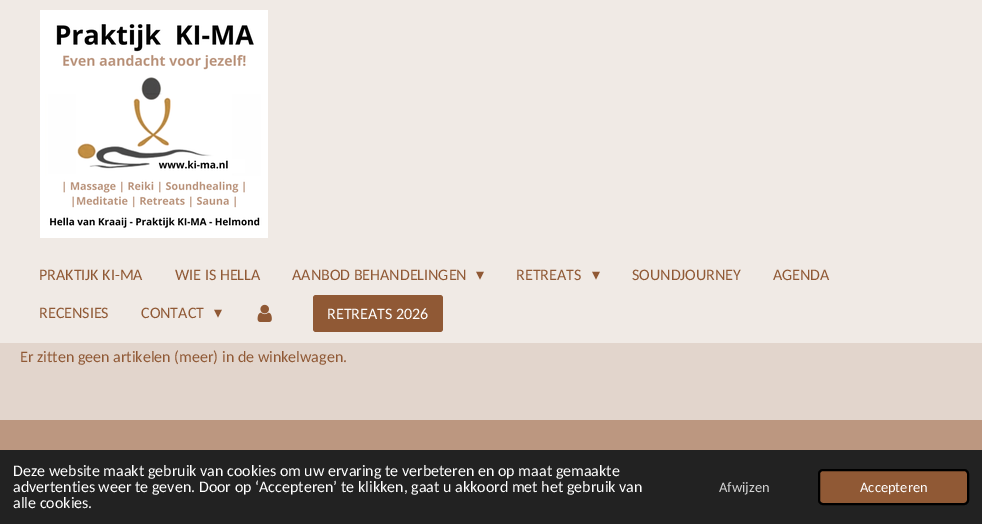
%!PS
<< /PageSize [982 524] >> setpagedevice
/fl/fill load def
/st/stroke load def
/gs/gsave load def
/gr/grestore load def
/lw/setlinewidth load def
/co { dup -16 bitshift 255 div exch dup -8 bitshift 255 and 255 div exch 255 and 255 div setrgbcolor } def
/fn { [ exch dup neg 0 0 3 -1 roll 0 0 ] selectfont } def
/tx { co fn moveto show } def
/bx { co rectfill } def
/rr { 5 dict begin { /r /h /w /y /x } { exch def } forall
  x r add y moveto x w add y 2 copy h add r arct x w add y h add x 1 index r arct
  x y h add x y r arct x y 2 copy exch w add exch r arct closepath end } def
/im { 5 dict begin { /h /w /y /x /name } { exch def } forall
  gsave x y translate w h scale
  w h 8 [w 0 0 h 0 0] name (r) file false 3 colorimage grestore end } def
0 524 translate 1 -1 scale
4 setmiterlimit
0 0 982 524 16#E2D5CC bx
0 0 982 343 16#F0EAE5 bx
(media/1.raw) 40 10 228 228 im
(media/2.raw) 257 304 15 18 im
16#905935 co
313 295 130 37 3 rr fl
0 420 982 30 16#BC9780 bx
0 450 982 74 16#222222 bx
16#905935 co
819 470 149 34 4 rr gs fl gr
16#000000 co
2 lw
st
(PRAKTIJK KI-MA) 39 280 /Carlito-Regular 16 16#905935 tx
(WIE IS HELLA) 175 280 /Carlito-Regular 16 16#905935 tx
(AANBOD BEHANDELINGEN) 292 280 /Carlito-Regular 16 16#905935 tx
(▾) 476 280 /DejaVuSans-Regular 16 16#905935 tx
(RETREATS) 516 280 /Carlito-Regular 16 16#905935 tx
(▾) 592 280 /DejaVuSans-Regular 16 16#905935 tx
(SOUNDJOURNEY) 632 280 /Carlito-Regular 16 16#905935 tx
(AGENDA) 773 280 /Carlito-Regular 16 16#905935 tx
(RECENSIES) 39 318 /Carlito-Regular 16 16#905935 tx
(CONTACT) 141 318 /Carlito-Regular 16 16#905935 tx
(▾) 214 318 /DejaVuSans-Regular 16 16#905935 tx
(RETREATS 2026) 327 319 /Carlito-Regular 16 16#FFFFFF tx
(Er zitten geen artikelen \(meer\) in de winkelwagen.) 20 362 /Carlito-Regular 16 16#905935 tx
(Deze website maakt gebruik van cookies om uw ervaring te verbeteren en op maat gemaakte) 13 476 /Carlito-Regular 16 16#FFFFFF tx
(advertenties weer te geven. Door op ‘Accepteren’ te klikken, gaat u akkoord met het gebruik van) 13 492 /Carlito-Regular 16 16#FFFFFF tx
(alle cookies.) 13 508 /Carlito-Regular 16 16#FFFFFF tx
(Afwijzen) 719 492 /Carlito-Regular 14.5 16#D3D3D3 tx
(Accepteren) 860 492 /Carlito-Regular 14.5 16#FFFFFF tx
showpage
